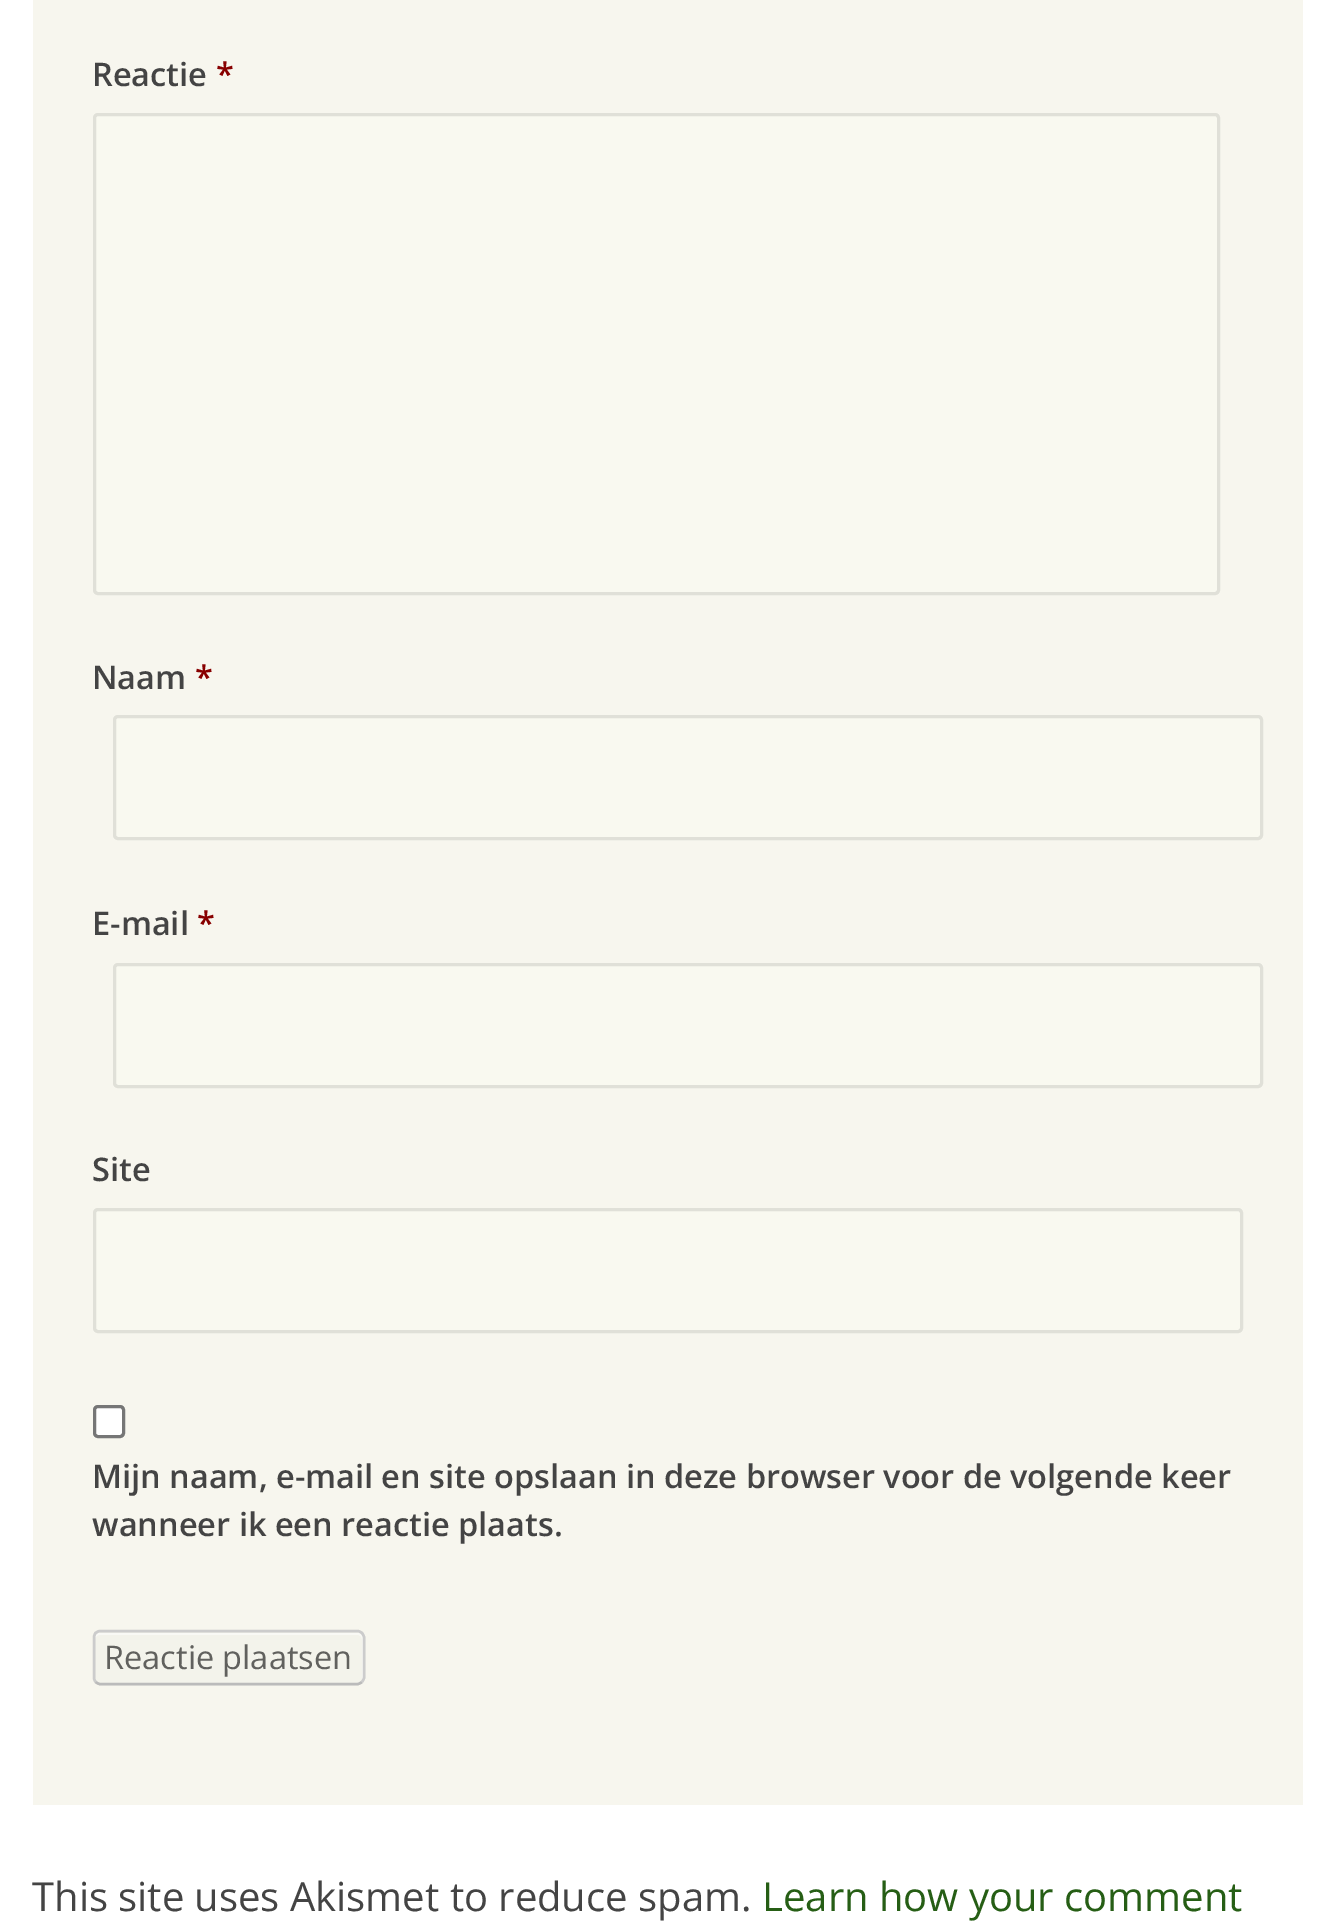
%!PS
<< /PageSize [1335 1925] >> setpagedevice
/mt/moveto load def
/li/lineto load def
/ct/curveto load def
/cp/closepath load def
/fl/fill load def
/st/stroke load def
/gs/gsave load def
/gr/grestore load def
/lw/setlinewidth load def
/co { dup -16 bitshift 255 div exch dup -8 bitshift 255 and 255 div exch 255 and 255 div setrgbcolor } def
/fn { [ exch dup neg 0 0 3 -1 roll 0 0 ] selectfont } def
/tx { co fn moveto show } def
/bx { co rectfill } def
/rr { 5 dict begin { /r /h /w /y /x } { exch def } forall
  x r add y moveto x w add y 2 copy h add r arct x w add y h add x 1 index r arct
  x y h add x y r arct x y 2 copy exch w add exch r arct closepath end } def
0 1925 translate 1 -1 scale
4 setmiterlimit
0 0 1335 1925 16#FFFFFF bx
33 0 1270 1805 16#F7F6EE bx
16#F9F9F0 co
94.5 114.5 1124 479 3.5 rr gs fl gr
16#E0E0D8 co
3 lw
st
16#F9F9F0 co
114.5 716.5 1147 122 3.5 rr gs fl gr
16#E0E0D8 co
st
16#F9F9F0 co
114.5 964.5 1147 122 3.5 rr gs fl gr
16#E0E0D8 co
st
16#F9F9F0 co
94.5 1209.5 1147 122 3.5 rr gs fl gr
16#E0E0D8 co
st
16#FFFFFF co
94.5 1406.5 29 30 3.5 rr gs fl gr
16#767676 co
st
16#F3F3EB co
93 1630 272 55 8 rr fl
16#F9F9F5 co
100 1635 mt 358 1635 li 360 1635 362 1637 362 1640 ct 362 1681 li 363 1680 363 1679 363 1678 ct 363 1638 li 363 1635 361 1633 358 1633 ct 100 1633 li 97 1633 95 1635 95 1638 ct 95 1640 li 95 1637 97 1635 100 1635 ct cp fl
16#BBBBBB co
2.5 lw
362 1682 mt 360.5 1683 359 1684 357.5 1684 ct 100 1684 li 98.5 1684 97 1683 95.5 1682 ct st
16#CCCCCC co
95.5 1682 mt 94.5 1680.5 94 1679 94 1677.5 ct 94 1637.5 li 94 1636 94.5 1634.5 95.5 1633 ct 97 1632 98.5 1631 100 1631 ct 357.5 1631 li 359 1631 360.5 1632 362 1633 ct 363 1634.5 364 1636 364 1637.5 ct 364 1677.5 li 364 1679 363 1680.5 362 1682 ct st
(Reactie) 92 86 /OpenSans-SemiBold 32.5 16#444444 tx
(*) 216 86 /OpenSans-SemiBold 32.5 16#880000 tx
(Naam) 92 689 /OpenSans-SemiBold 32.5 16#444444 tx
(*) 195 689 /OpenSans-SemiBold 32.5 16#880000 tx
(E-mail) 92 935 /OpenSans-SemiBold 32.5 16#444444 tx
(*) 197 935 /OpenSans-SemiBold 32.5 16#880000 tx
(Site) 92 1181 /OpenSans-SemiBold 32.5 16#444444 tx
(Mijn naam, e-mail en site opslaan in deze browser voor de volgende keer) 92 1488 /OpenSans-SemiBold 32.5 16#444444 tx
(wanneer ik een reactie plaats.) 92 1536 /OpenSans-SemiBold 32.5 16#444444 tx
(Reactie plaatsen) 104 1669 /OpenSans-Regular 32.5 16#61615E tx
(This site uses Akismet to reduce spam.) 32 1911 /OpenSans-Regular 40 16#444444 tx
(Learn how your comment) 762 1911 /OpenSans-Regular 40 16#265E15 tx
showpage
